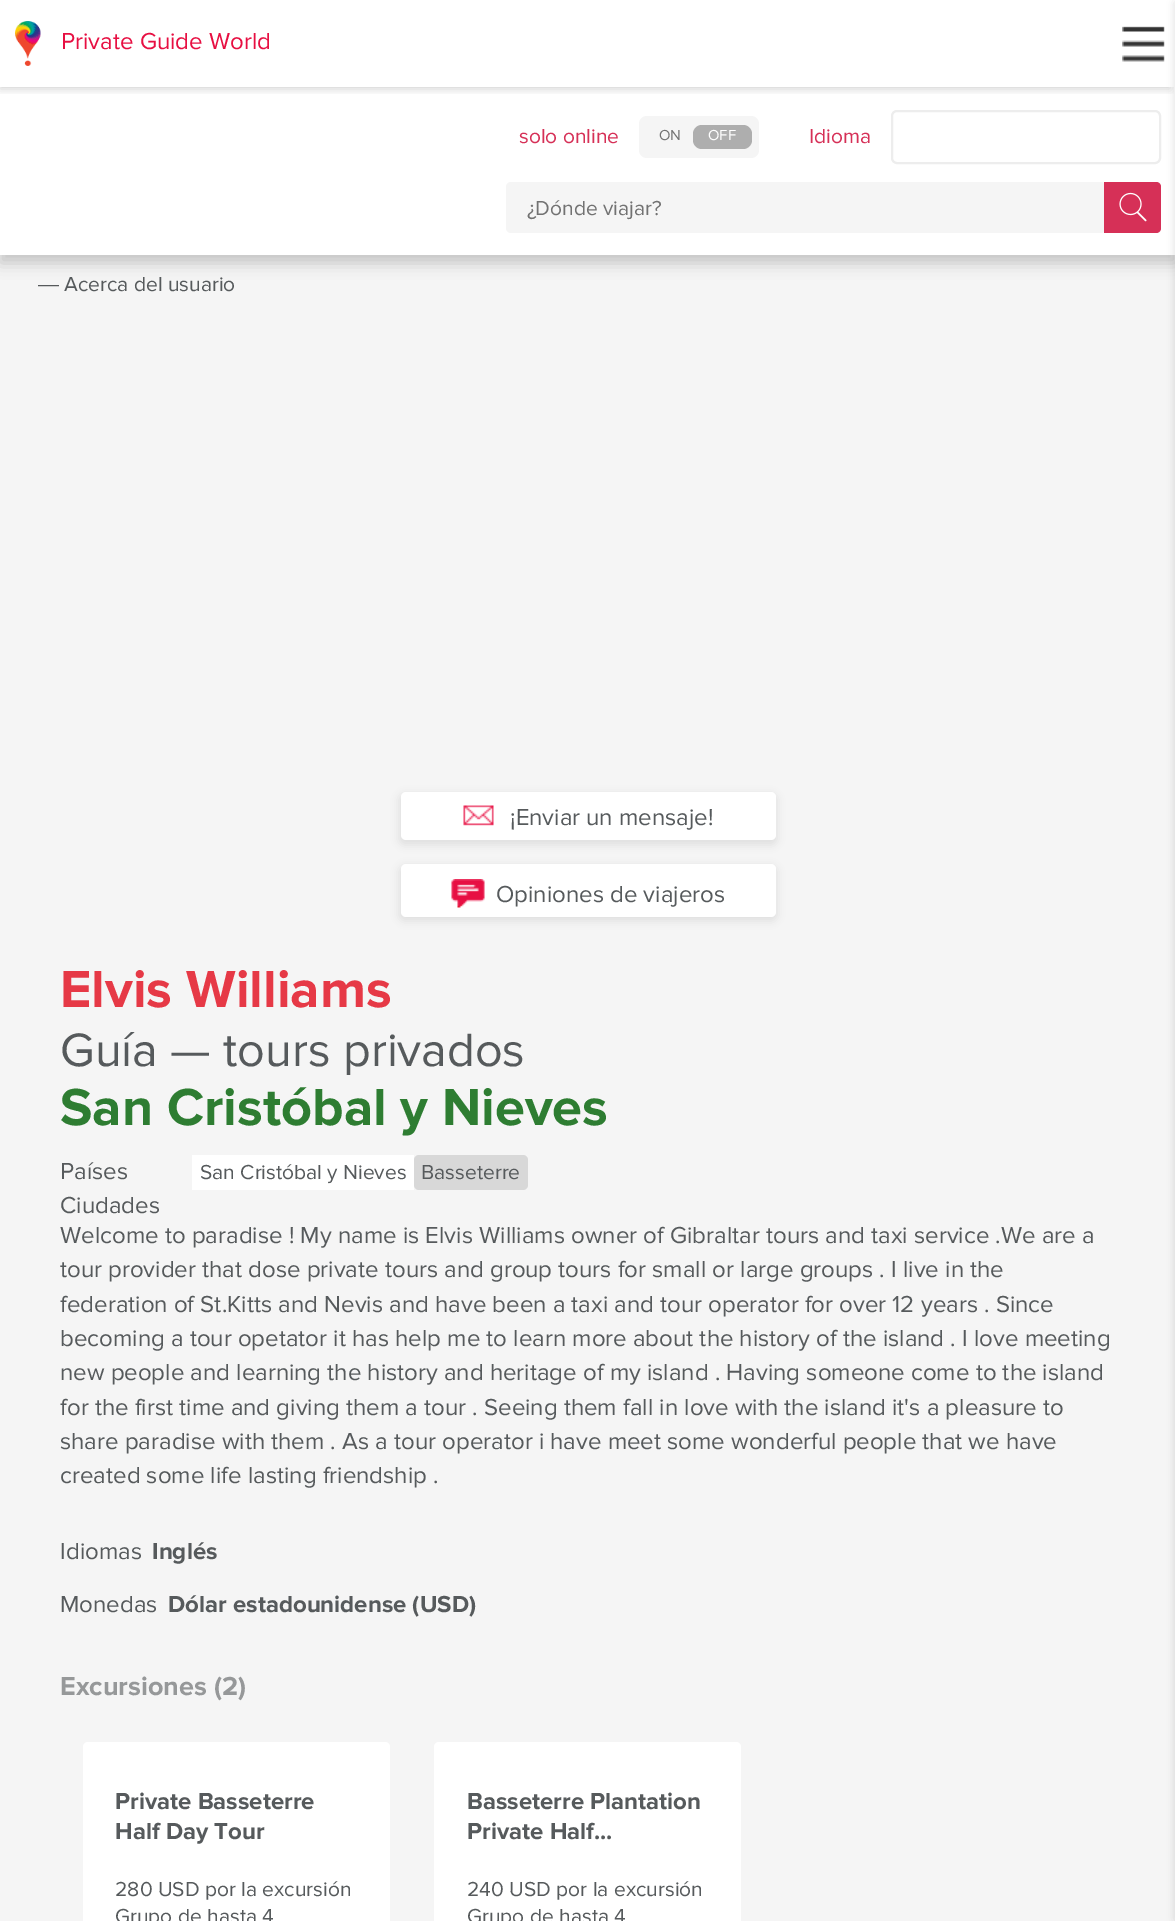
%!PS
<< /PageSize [1175 1921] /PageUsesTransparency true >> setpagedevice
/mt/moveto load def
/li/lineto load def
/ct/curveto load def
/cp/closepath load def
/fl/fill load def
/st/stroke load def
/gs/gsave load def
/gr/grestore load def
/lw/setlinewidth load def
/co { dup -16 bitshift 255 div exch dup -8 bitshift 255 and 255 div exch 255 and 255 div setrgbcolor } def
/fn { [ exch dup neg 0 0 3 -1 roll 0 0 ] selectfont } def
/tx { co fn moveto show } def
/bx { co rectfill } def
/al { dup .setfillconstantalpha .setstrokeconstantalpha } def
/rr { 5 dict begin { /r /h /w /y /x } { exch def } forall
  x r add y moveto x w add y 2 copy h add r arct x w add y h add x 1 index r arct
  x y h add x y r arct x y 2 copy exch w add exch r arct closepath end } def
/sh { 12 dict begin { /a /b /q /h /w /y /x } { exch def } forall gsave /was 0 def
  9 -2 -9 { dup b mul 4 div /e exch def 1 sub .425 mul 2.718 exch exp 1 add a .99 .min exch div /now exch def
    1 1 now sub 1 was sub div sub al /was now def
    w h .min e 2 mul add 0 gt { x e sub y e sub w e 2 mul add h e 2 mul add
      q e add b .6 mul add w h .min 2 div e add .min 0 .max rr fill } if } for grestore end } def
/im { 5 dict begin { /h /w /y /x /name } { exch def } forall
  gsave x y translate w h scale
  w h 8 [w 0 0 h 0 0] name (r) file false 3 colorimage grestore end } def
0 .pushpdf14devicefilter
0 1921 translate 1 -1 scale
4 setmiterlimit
0 0 1175 1921 16#F5F5F5 bx
16#000000 co
0 8 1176 255 0 7.5 .2 sh
0 0 1175 255 16#FFFFFF bx
gs
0 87 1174 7 rectclip
16#000000 co
0 8 1170 81 0 4.5 .17 sh
gr
(media/1.raw) 15 21 26 45 im
16#000000 co
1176 3 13 1916 0 4.5 .17 sh
16#F5F5F5 co
639 116 120 42 8 rr fl
16#AEAEAE co
693 125 59 24 9 rr fl
16#EDEDED co
2 lw
892 111 268 52 5 rr st
16#F5F5F5 co
506 182 600 51 5 rr fl
16#D63057 co
1104 182 mt 1156 182 li 1159 182 1161 184 1161 187 ct 1161 228 li 1161 231 1159 233 1156 233 ct 1104 233 li cp fl
(media/2.raw) 1119 192 28 30 im
(media/3.raw) 1122 26 43 36 im
16#494949 co
399 794 378 51 6 4 .12 sh
16#FFFFFF co
401 792 375 48 5 rr fl
(media/4.raw) 463 805 31 21 im
16#494949 co
399 866 378 55 6 4 .12 sh
16#FFFFFF co
401 864 375 53 5 rr fl
(media/5.raw) 451 879 34 29 im
192 1155 222 35 16#FFFFFF bx
16#D8D8D8 co
414 1155 114 35 5 rr fl
16#FFFFFF co
83 1742 307 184 5 rr fl
434 1742 307 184 5 rr fl
(Private Guide World) 61 49 /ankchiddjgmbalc-Regular 24 16#E70F42 tx
(solo online) 519 143 /ankchiddjgmbalc-Regular 21 16#D63057 tx
(ON) 659 140 /ankchiddjgmbalc-Regular 15 16#727272 tx
(OFF) 708 140 /ankchiddjgmbalc-Regular 15 16#FFFFFF tx
(Idioma) 809 143 /ankchiddjgmbalc-Regular 21 16#D63057 tx
(¿Dónde viajar?) 527 215 /ankchiddjgmbalc-Regular 21 16#727272 tx
(―) 38 291 /LiberationSans-Regular 21 16#565A5C tx
(Acerca del usuario) 64 291 /ankchiddjgmbalc-Regular 21 16#565A5C tx
(¡Enviar un mensaje!) 510 825 /ankchiddjgmbalc-Regular 24 16#565A5C tx
(Opiniones de viajeros) 496 902 /ankchiddjgmbalc-Regular 24 16#565A5C tx
(Elvis Williams) 60 1007 /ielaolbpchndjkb-Bold 54 16#E63946 tx
(Guía — tours privados) 60 1066 /ankchiddjgmbalc-Regular 48.5 16#565A5C tx
(San Cristóbal y Nieves) 60 1125 /ielaolbpchndjkb-Bold 54 16#2E7D32 tx
(Países) 60 1179 /ankchiddjgmbalc-Regular 24 16#565A5C tx
(Ciudades) 60 1213 /ankchiddjgmbalc-Regular 24 16#565A5C tx
(San Cristóbal y Nieves) 200 1179 /ankchiddjgmbalc-Regular 21 16#565A5C tx
(Basseterre) 421 1179 /ankchiddjgmbalc-Regular 21 16#565A5C tx
(Welcome to paradise ! My name is Elvis Williams owner of Gibraltar tours and taxi service .We are a) 60 1243 /ankchiddjgmbalc-Regular 24 16#565A5C tx
(tour provider that dose private tours and group tours for small or large groups . I live in the) 60 1277 /ankchiddjgmbalc-Regular 24 16#565A5C tx
(federation of St.Kitts and Nevis and have been a taxi and tour operator for over 12 years . Since) 60 1312 /ankchiddjgmbalc-Regular 24 16#565A5C tx
(becoming a tour opetator it has help me to learn more about the history of the island . I love meeting) 60 1346 /ankchiddjgmbalc-Regular 24 16#565A5C tx
(new people and learning the history and heritage of my island . Having someone come to the island) 60 1380 /ankchiddjgmbalc-Regular 24 16#565A5C tx
(for the first time and giving them a tour . Seeing them fall in love with the island it's a pleasure to) 60 1415 /ankchiddjgmbalc-Regular 24 16#565A5C tx
(share paradise with them . As a tour operator i have meet some wonderful people that we have) 60 1449 /ankchiddjgmbalc-Regular 24 16#565A5C tx
(created some life lasting friendship .) 60 1483 /ankchiddjgmbalc-Regular 24 16#565A5C tx
(Idiomas) 60 1559 /ankchiddjgmbalc-Regular 24 16#565A5C tx
(Inglés) 152 1559 /ielaolbpchndjkb-Bold 24 16#565A5C tx
(Monedas) 60 1612 /ankchiddjgmbalc-Regular 24 16#565A5C tx
(Dólar estadounidense \(USD\)) 168 1612 /ielaolbpchndjkb-Bold 24 16#565A5C tx
(Excursiones \(2\)) 60 1695 /ielaolbpchndjkb-Bold 27 16#969899 tx
(Private Basseterre) 115 1809 /ielaolbpchndjkb-Bold 24 16#565A5C tx
(Half Day Tour) 115 1839 /ielaolbpchndjkb-Bold 24 16#565A5C tx
(280 USD por la excursión) 115 1896 /ankchiddjgmbalc-Regular 21 16#565A5C tx
(Grupo de hasta 4) 115 1923 /ankchiddjgmbalc-Regular 21 16#565A5C tx
(Basseterre Plantation) 467 1809 /ielaolbpchndjkb-Bold 24 16#565A5C tx
(Private Half...) 467 1839 /ielaolbpchndjkb-Bold 24 16#565A5C tx
(240 USD por la excursión) 467 1896 /ankchiddjgmbalc-Regular 21 16#565A5C tx
(Grupo de hasta 4) 467 1923 /ankchiddjgmbalc-Regular 21 16#565A5C tx
.poppdf14devicefilter showpage
